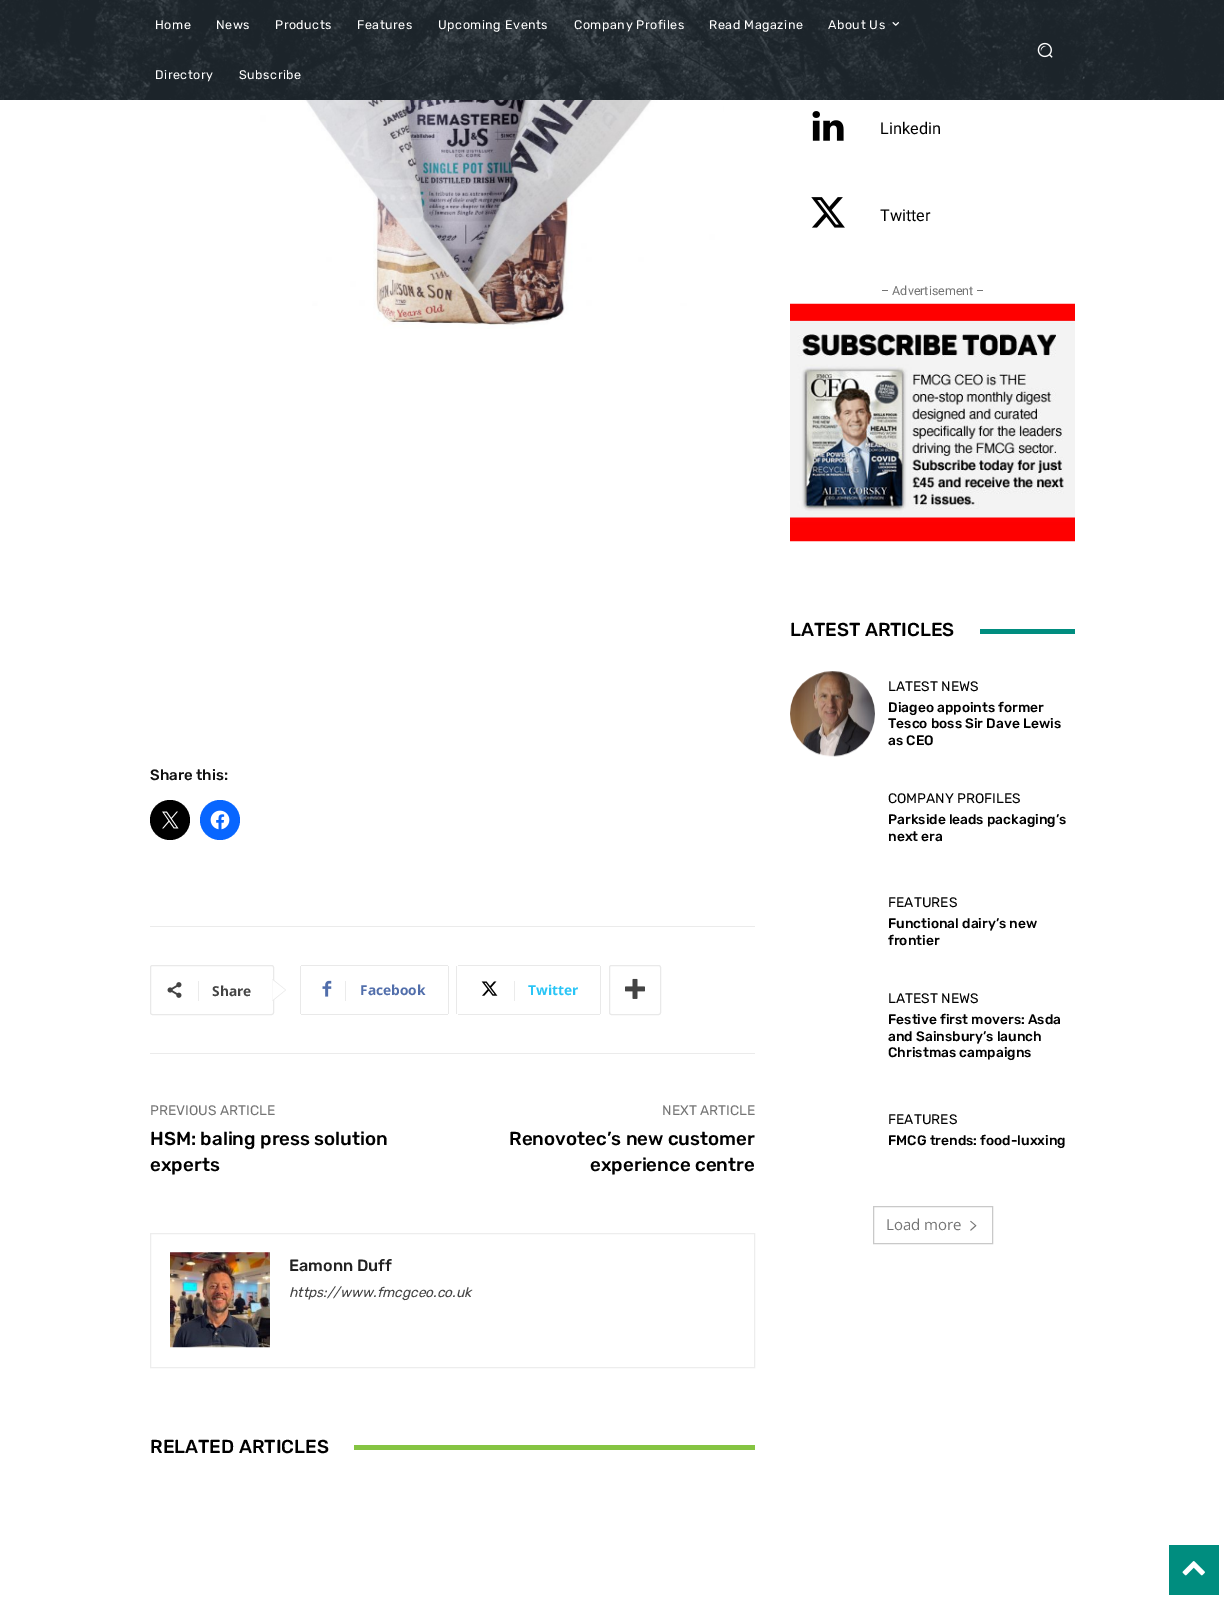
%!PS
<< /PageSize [1224 1600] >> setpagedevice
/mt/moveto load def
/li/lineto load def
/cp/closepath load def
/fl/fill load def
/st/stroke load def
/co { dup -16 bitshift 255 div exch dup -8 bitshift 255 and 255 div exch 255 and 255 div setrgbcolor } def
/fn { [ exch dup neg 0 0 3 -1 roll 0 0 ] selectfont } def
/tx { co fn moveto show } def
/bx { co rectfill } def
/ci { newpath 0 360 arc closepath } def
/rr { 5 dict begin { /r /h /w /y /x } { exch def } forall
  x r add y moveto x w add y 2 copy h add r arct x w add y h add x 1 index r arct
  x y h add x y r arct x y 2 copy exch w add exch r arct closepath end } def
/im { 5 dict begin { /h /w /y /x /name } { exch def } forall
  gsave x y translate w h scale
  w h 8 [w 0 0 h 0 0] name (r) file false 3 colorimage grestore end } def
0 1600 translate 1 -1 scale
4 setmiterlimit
0 0 1224 1600 16#FFFFFF bx
0 0 1224 100 16#232D35 bx
(media/1.raw) 0 0 1224 100 im
(media/2.raw) 892 22 7 4 im
(media/3.raw) 1037 42 16 16 im
(media/4.raw) 236 100 488 229 im
16#000000 co
170 820 20 ci fl
(media/5.raw) 162 811 17 18 im
16#0866FF co
220 820 20 ci fl
(media/6.raw) 210 810 20 20 im
150 926 605 1 16#EBEBEB bx
16#E9E9E9 co
150.5 965.5 123 49 2 rr st
272.5 1001 mt 272.5 979 li 286 990 li cp fl
(media/7.raw) 167 982 15 16 im
198 981 1 20 16#EBEBEB bx
16#FFFFFF co
272.5 1000 mt 272.5 980 li 285 990 li cp fl
300 966 1 48 16#E9E9E9 bx
(media/8.raw) 322 980 10 17 im
301 965 147 1 16#E9E9E9 bx
448 966 1 48 16#E9E9E9 bx
301 1014 147 1 16#E9E9E9 bx
345 981 1 20 16#EBEBEB bx
456 966 1 48 16#E9E9E9 bx
(media/9.raw) 481 981 17 15 im
458 965 142 1 16#E9E9E9 bx
600 966 1 48 16#E9E9E9 bx
458 1014 142 1 16#E9E9E9 bx
514 981 1 20 16#EBEBEB bx
16#E9E9E9 co
609.5 965.5 51 49 2 rr st
(media/10.raw) 625 978 20 21 im
150 1053 605 1 16#EBEBEB bx
16#EDEDED co
150.5 1233.5 604 134 rectstroke
(media/11.raw) 170 1252 100 96 im
354 1445 401 5 16#85C442 bx
(media/12.raw) 812 111 32 30 im
(media/13.raw) 811 197 34 31 im
(media/14.raw) 790 303 285 239 im
980 629 95 5 16#008D7F bx
(media/15.raw) 790 671 85 86 im
16#C9C9C9 co
873.5 1206.5 119 37 rectstroke
(media/16.raw) 970 1220 7 11 im
1169 1545 50 50 16#008D7F bx
(media/17.raw) 1182 1561 23 15 im
/Rubik-Regular 12.5 fn
16#FFFFFF co
155 29 mt .5 0 (Home) ashow
216 29 mt .5 0 (News) ashow
275 29 mt .5 0 (Products) ashow
357 29 mt .5 0 (Features) ashow
438 29 mt .5 0 (Upcoming Events) ashow
574 29 mt .5 0 (Company Profiles) ashow
709 29 mt .5 0 (Read Magazine) ashow
828 29 mt .5 0 (About Us) ashow
155 79 mt .5 0 (Directory) ashow
239 79 mt .5 0 (Subscribe) ashow
(Share this:) 150 780 /Rubik-Medium 15 16#111111 tx
(Share) 212 996 /OpenSans-Bold 13.75 16#444444 tx
(Facebook) 360 995 /OpenSans-Bold 13.75 16#516EAB tx
(Twitter) 528 995 /OpenSans-Bold 13.75 16#29C5F6 tx
(PREVIOUS ARTICLE) 150 1115 /Rubik-Regular 13.75 16#747474 tx
(HSM: baling press solution) 150 1145 /Rubik-Medium 18.75 16#000000 tx
(experts) 150 1171 /Rubik-Medium 18.75 16#000000 tx
(NEXT ARTICLE) 662 1115 /Rubik-Regular 13.75 16#747474 tx
(Renovotec’s new customer) 509 1145 /Rubik-Medium 18.75 16#000000 tx
(experience centre) 590 1171 /Rubik-Medium 18.75 16#000000 tx
(Eamonn Duff) 289 1271 /Rubik-Medium 16.25 16#222222 tx
(https://www.fmcgceo.co.uk) 289 1297 /Rubik-Italic 13.75 16#444444 tx
(RELATED ARTICLES) 150 1453 /Rubik-Medium 18.75 16#000000 tx
(Linkedin) 880 134 /Roboto-Regular 16.25 16#000000 tx
(Twitter) 880 221 /Roboto-Regular 16.25 16#000000 tx
(– Advertisement –) 881 295 /Roboto-Regular 12.5 16#747474 tx
(LATEST ARTICLES) 790 636 /Rubik-Medium 18.75 16#000000 tx
(LATEST NEWS) 888 691 /Rubik-Regular 13.75 16#000000 tx
(Diageo appoints former) 888 712 /Rubik-Medium 13.75 16#000000 tx
(Tesco boss Sir Dave Lewis) 888 728 /Rubik-Medium 13.75 16#000000 tx
(as CEO) 888 745 /Rubik-Medium 13.75 16#000000 tx
(COMPANY PROFILES) 888 803 /Rubik-Regular 13.75 16#000000 tx
(Parkside leads packaging’s) 888 824 /Rubik-Medium 13.75 16#000000 tx
(next era) 888 841 /Rubik-Medium 13.75 16#000000 tx
(FEATURES) 888 907 /Rubik-Regular 13.75 16#000000 tx
(Functional dairy’s new) 888 928 /Rubik-Medium 13.75 16#000000 tx
(frontier) 888 945 /Rubik-Medium 13.75 16#000000 tx
(LATEST NEWS) 888 1003 /Rubik-Regular 13.75 16#000000 tx
(Festive first movers: Asda) 888 1024 /Rubik-Medium 13.75 16#000000 tx
(and Sainsbury’s launch) 888 1041 /Rubik-Medium 13.75 16#000000 tx
(Christmas campaigns) 888 1057 /Rubik-Medium 13.75 16#000000 tx
(FEATURES) 888 1124 /Rubik-Regular 13.75 16#000000 tx
(FMCG trends: food-luxxing) 888 1145 /Rubik-Medium 13.75 16#000000 tx
(Load more) 886 1230 /OpenSans-Regular 15 16#747474 tx
showpage
